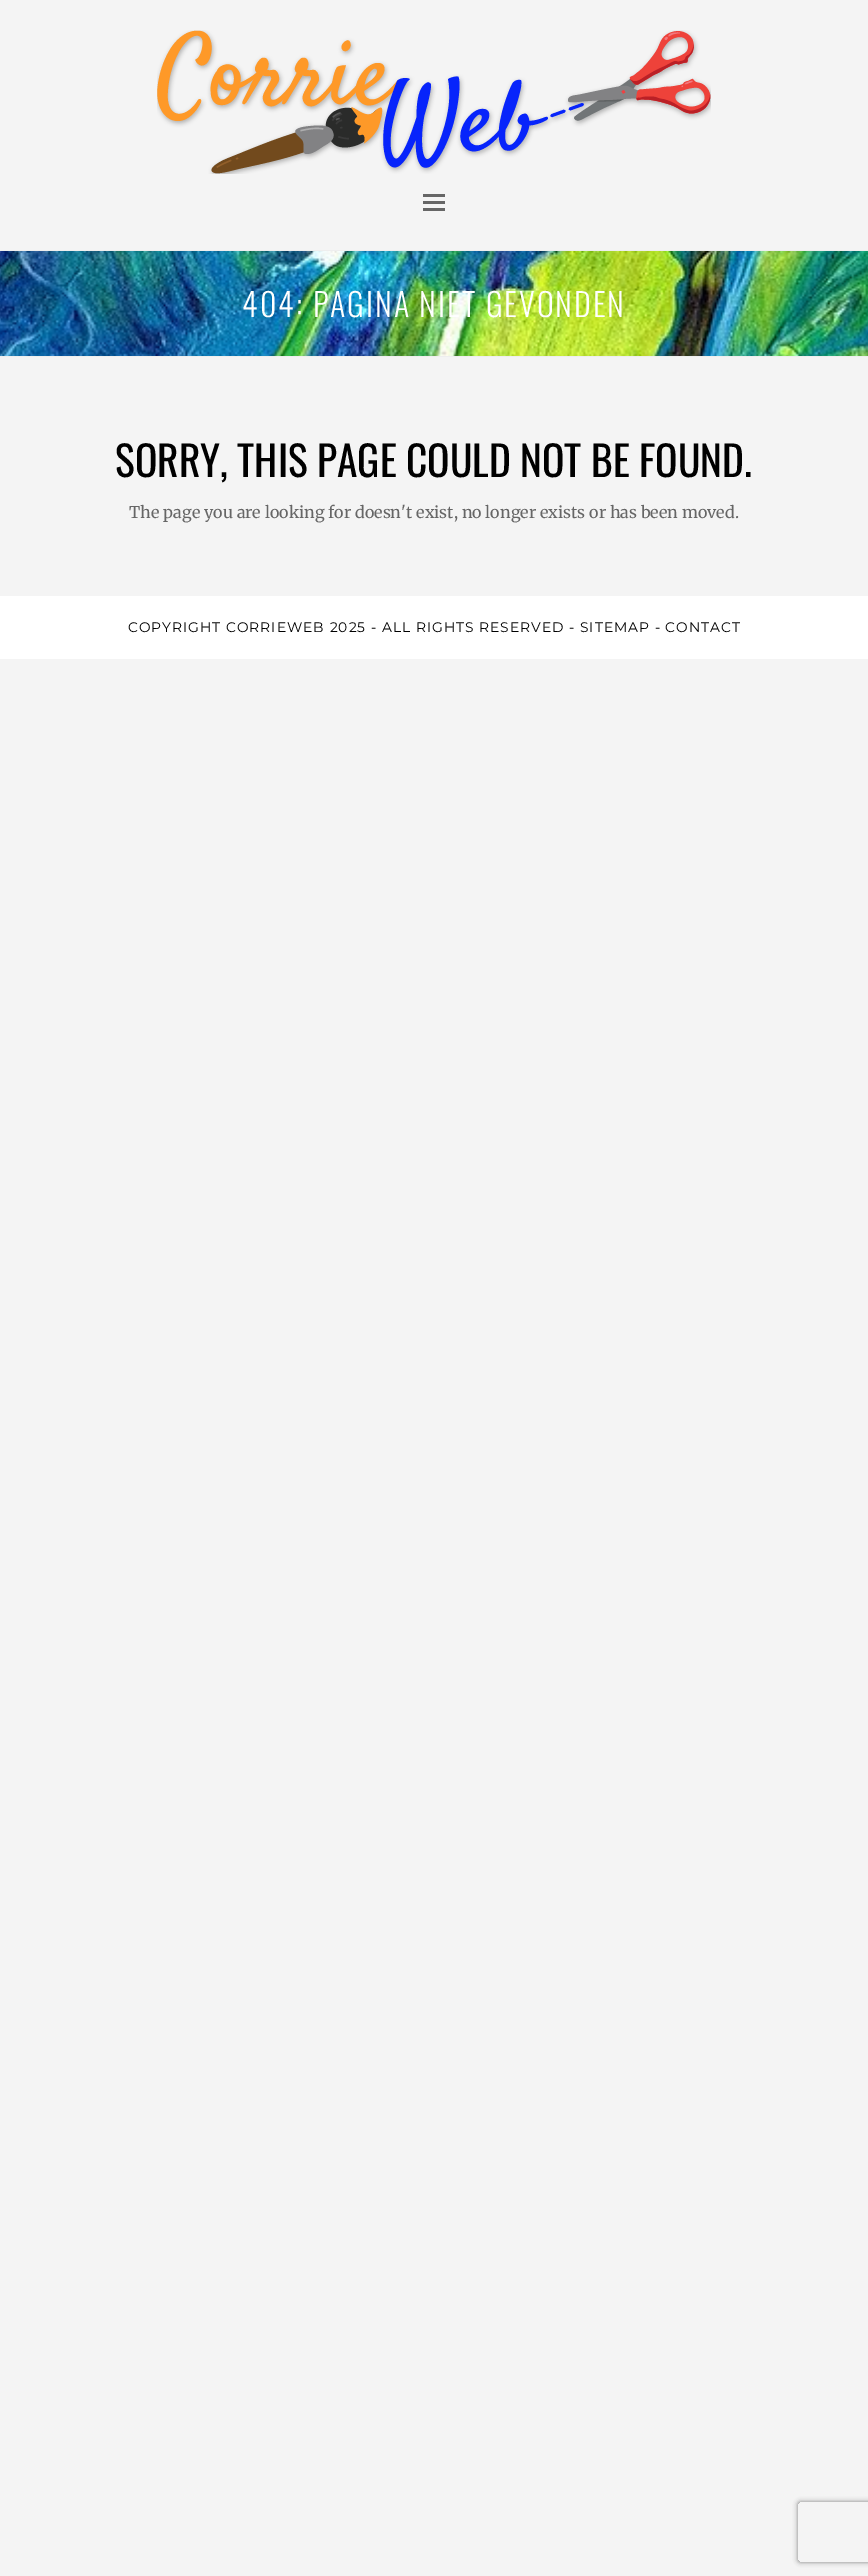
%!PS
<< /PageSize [868 2576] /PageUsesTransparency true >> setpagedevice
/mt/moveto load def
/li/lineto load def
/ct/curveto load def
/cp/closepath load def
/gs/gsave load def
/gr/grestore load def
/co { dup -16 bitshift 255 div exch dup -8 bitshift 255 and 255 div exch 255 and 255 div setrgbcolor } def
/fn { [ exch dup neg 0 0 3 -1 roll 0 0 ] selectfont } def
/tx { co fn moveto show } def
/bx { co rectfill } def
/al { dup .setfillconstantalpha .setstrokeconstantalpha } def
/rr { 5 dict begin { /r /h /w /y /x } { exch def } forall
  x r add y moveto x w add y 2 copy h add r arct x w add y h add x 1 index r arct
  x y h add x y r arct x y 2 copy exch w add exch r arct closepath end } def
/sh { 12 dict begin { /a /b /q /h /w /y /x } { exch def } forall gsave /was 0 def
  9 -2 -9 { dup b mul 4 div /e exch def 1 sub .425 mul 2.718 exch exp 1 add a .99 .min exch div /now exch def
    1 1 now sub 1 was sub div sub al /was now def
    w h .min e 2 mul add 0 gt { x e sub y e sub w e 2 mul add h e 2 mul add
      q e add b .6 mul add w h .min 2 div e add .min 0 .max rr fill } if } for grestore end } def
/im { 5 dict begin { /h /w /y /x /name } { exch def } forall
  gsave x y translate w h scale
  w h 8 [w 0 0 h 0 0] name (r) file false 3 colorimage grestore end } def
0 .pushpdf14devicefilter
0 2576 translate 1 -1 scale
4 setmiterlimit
0 0 868 2576 16#F4F4F4 bx
(media/1.raw) 157 30 554 144 im
423 201 22 3 16#666666 bx
423 194 22 3 16#666666 bx
423 208 22 3 16#666666 bx
(media/2.raw) 0 251 868 105 im
0 250 868 1 16#EEEEEE bx
0 356 868 1 16#EEEEEE bx
0 596 868 63 16#FFFFFF bx
gs
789 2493 mt 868 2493 li 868 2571 li 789 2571 li cp 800 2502 mt 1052 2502 li 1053 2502 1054 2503 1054 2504 ct 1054 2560 li 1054 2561 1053 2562 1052 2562 ct 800 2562 li 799 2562 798 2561 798 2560 ct 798 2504 li 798 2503 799 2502 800 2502 ct cp eoclip newpath
16#808080 co
798 2502 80 60 2 2.5 1 sh
gr
/Oswald-Light 32 fn
242 317 mt 2 0 (404: PAGINA NIET GEVONDEN) ashow
(SORRY, THIS PAGE COULD NOT BE FOUND.) 115 477 /Oswald-Regular 41.5 16#000000 tx
(The page you are looking for doesn't exist, no longer exists or has been moved.) 129 518 /Merriweather-Regular 16.15 16#666666 tx
/Montserrat-Regular 13.85 fn
16#000000 co
128 632 mt 1 0 (COPYRIGHT CORRIEWEB 2025 - ALL RIGHTS RESERVED - SITEMAP - CONTACT) ashow
.poppdf14devicefilter showpage
